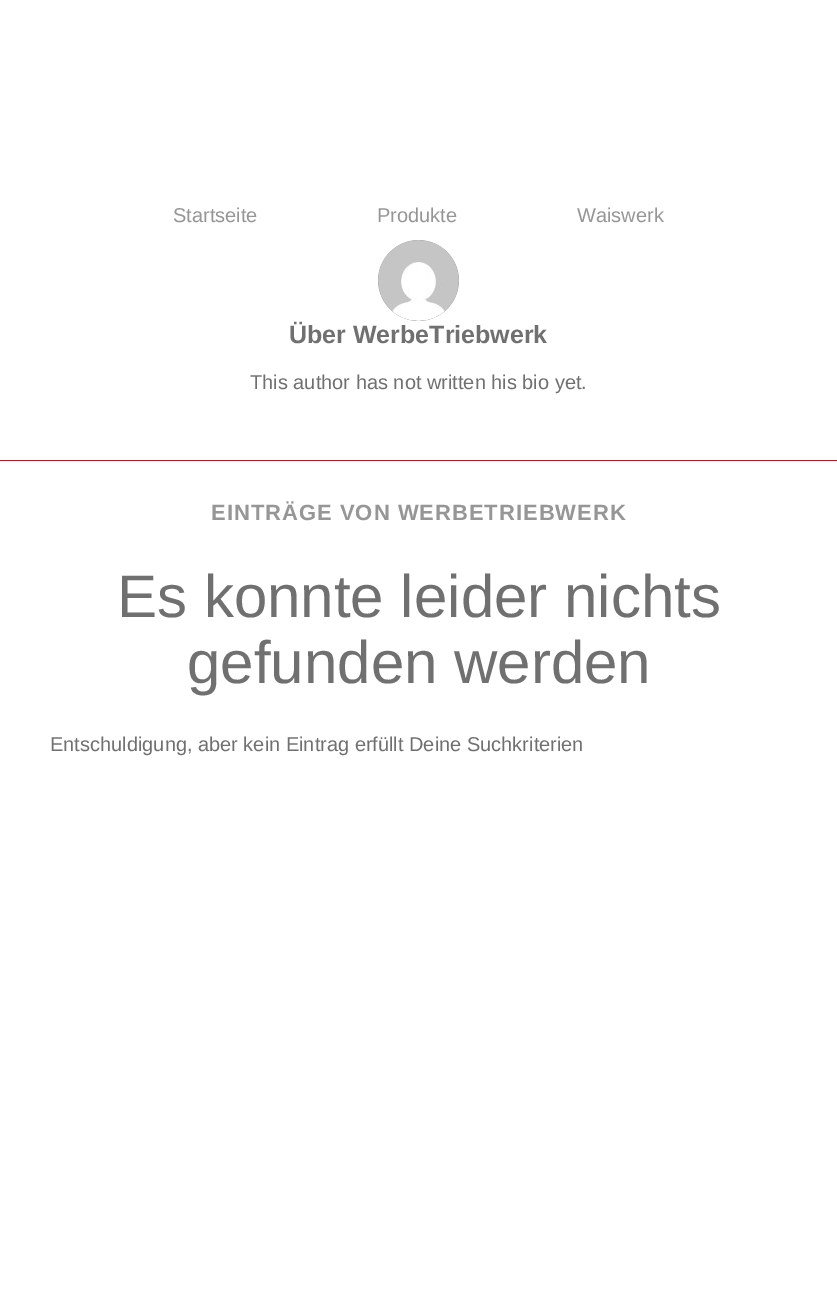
%!PS
<< /PageSize [837 1313] >> setpagedevice
/mt/moveto load def
/fl/fill load def
/co { dup -16 bitshift 255 div exch dup -8 bitshift 255 and 255 div exch 255 and 255 div setrgbcolor } def
/fn { [ exch dup neg 0 0 3 -1 roll 0 0 ] selectfont } def
/tx { co fn moveto show } def
/bx { co rectfill } def
/ci { newpath 0 360 arc closepath } def
/im { 5 dict begin { /h /w /y /x /name } { exch def } forall
  gsave x y translate w h scale
  w h 8 [w 0 0 h 0 0] name (r) file false 3 colorimage grestore end } def
0 1313 translate 1 -1 scale
4 setmiterlimit
0 0 837 1313 16#FFFFFF bx
16#969696 co
418.5 280.5 40.5 ci fl
(media/1.raw) 378 240 81 81 im
0 460 837 1 16#AB1925 bx
(Startseite) 173 222 /LiberationSans-Regular 20 16#969696 tx
(Produkte) 377 222 /LiberationSans-Regular 20 16#969696 tx
(Waiswerk) 577 222 /LiberationSans-Regular 20 16#969696 tx
(Über WerbeTriebwerk) 289 343 /LiberationSans-Bold 25 16#707070 tx
(This author has not written his bio yet.) 250 389 /LiberationSans-Regular 20 16#707070 tx
/LiberationSans-Bold 22 fn
16#969696 co
211 520 mt 1 0 (EINTRÄGE VON WERBETRIEBWERK) ashow
(Es konnte leider nichts) 117 617 /LiberationSans-Regular 60 16#707070 tx
(gefunden werden) 187 683 /LiberationSans-Regular 60 16#707070 tx
(Entschuldigung, aber kein Eintrag erfüllt Deine Suchkriterien) 50 751 /LiberationSans-Regular 20 16#707070 tx
showpage
